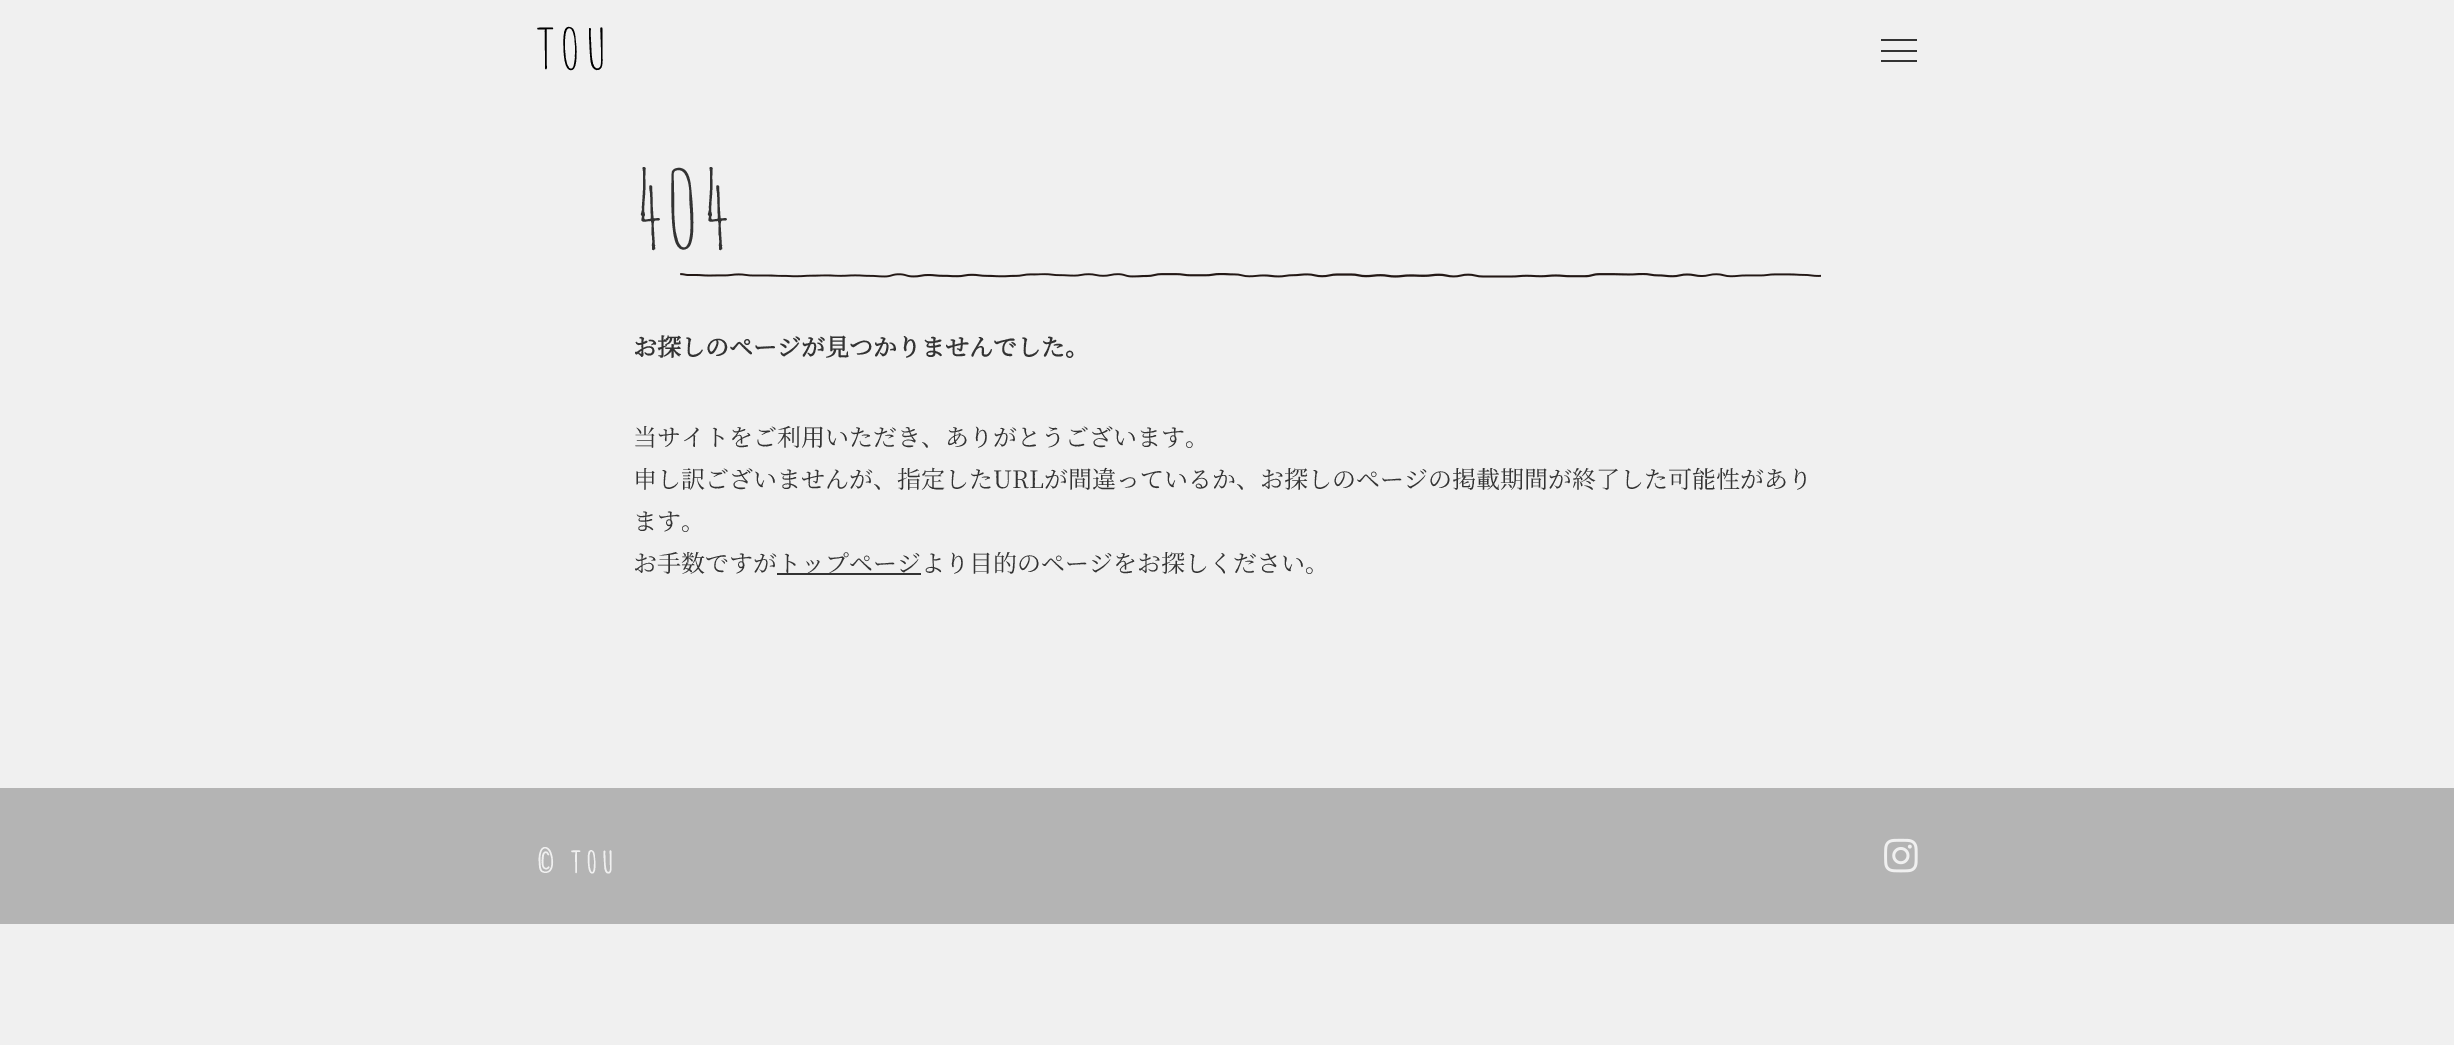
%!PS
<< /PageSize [2454 1045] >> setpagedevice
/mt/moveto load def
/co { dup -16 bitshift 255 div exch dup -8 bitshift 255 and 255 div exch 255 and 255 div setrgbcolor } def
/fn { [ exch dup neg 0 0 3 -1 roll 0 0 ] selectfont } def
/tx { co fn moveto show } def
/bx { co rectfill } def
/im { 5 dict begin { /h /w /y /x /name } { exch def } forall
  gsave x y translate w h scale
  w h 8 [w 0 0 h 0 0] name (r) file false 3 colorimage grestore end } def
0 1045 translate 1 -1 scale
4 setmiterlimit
0 0 2454 1045 16#F0F0F0 bx
1881 39 36 2 16#333333 bx
1881 50 36 2 16#333333 bx
1881 60 36 2 16#333333 bx
(media/1.raw) 680 273 1141 5 im
777 573 144 2 16#333333 bx
0 788 2454 136 16#B4B4B4 bx
(media/2.raw) 1884 838 34 35 im
/AmaticSC-Regular 55 fn
16#000000 co
537 69 mt 5.5 0 (TOU) ashow
(404) 633 249 /AmaticSC-Regular 108 16#333333 tx
(お探しのページが見つかりませんでした。) 633 356 /NotoSerifJP-Bold 24 16#333333 tx
(当サイトをご利用いただき、ありがとうございます。) 633 446 /NotoSerifJP-ExtraLight 24 16#333333 tx
(申し訳ございませんが、指定したURLが間違っているか、お探しのページの掲載期間が終了した可能性があり) 633 488 /NotoSerifJP-ExtraLight 24 16#333333 tx
(ます。) 633 530 /NotoSerifJP-ExtraLight 24 16#333333 tx
(お手数ですが) 633 572 /NotoSerifJP-ExtraLight 24 16#333333 tx
(トップページより目的のページをお探しください。) 777 572 /NotoSerifJP-ExtraLight 24 16#333333 tx
/AmaticSC-Bold 29 fn
16#F0F0F0 co
537 873 mt 5.75 0 (© TOU) ashow
showpage
